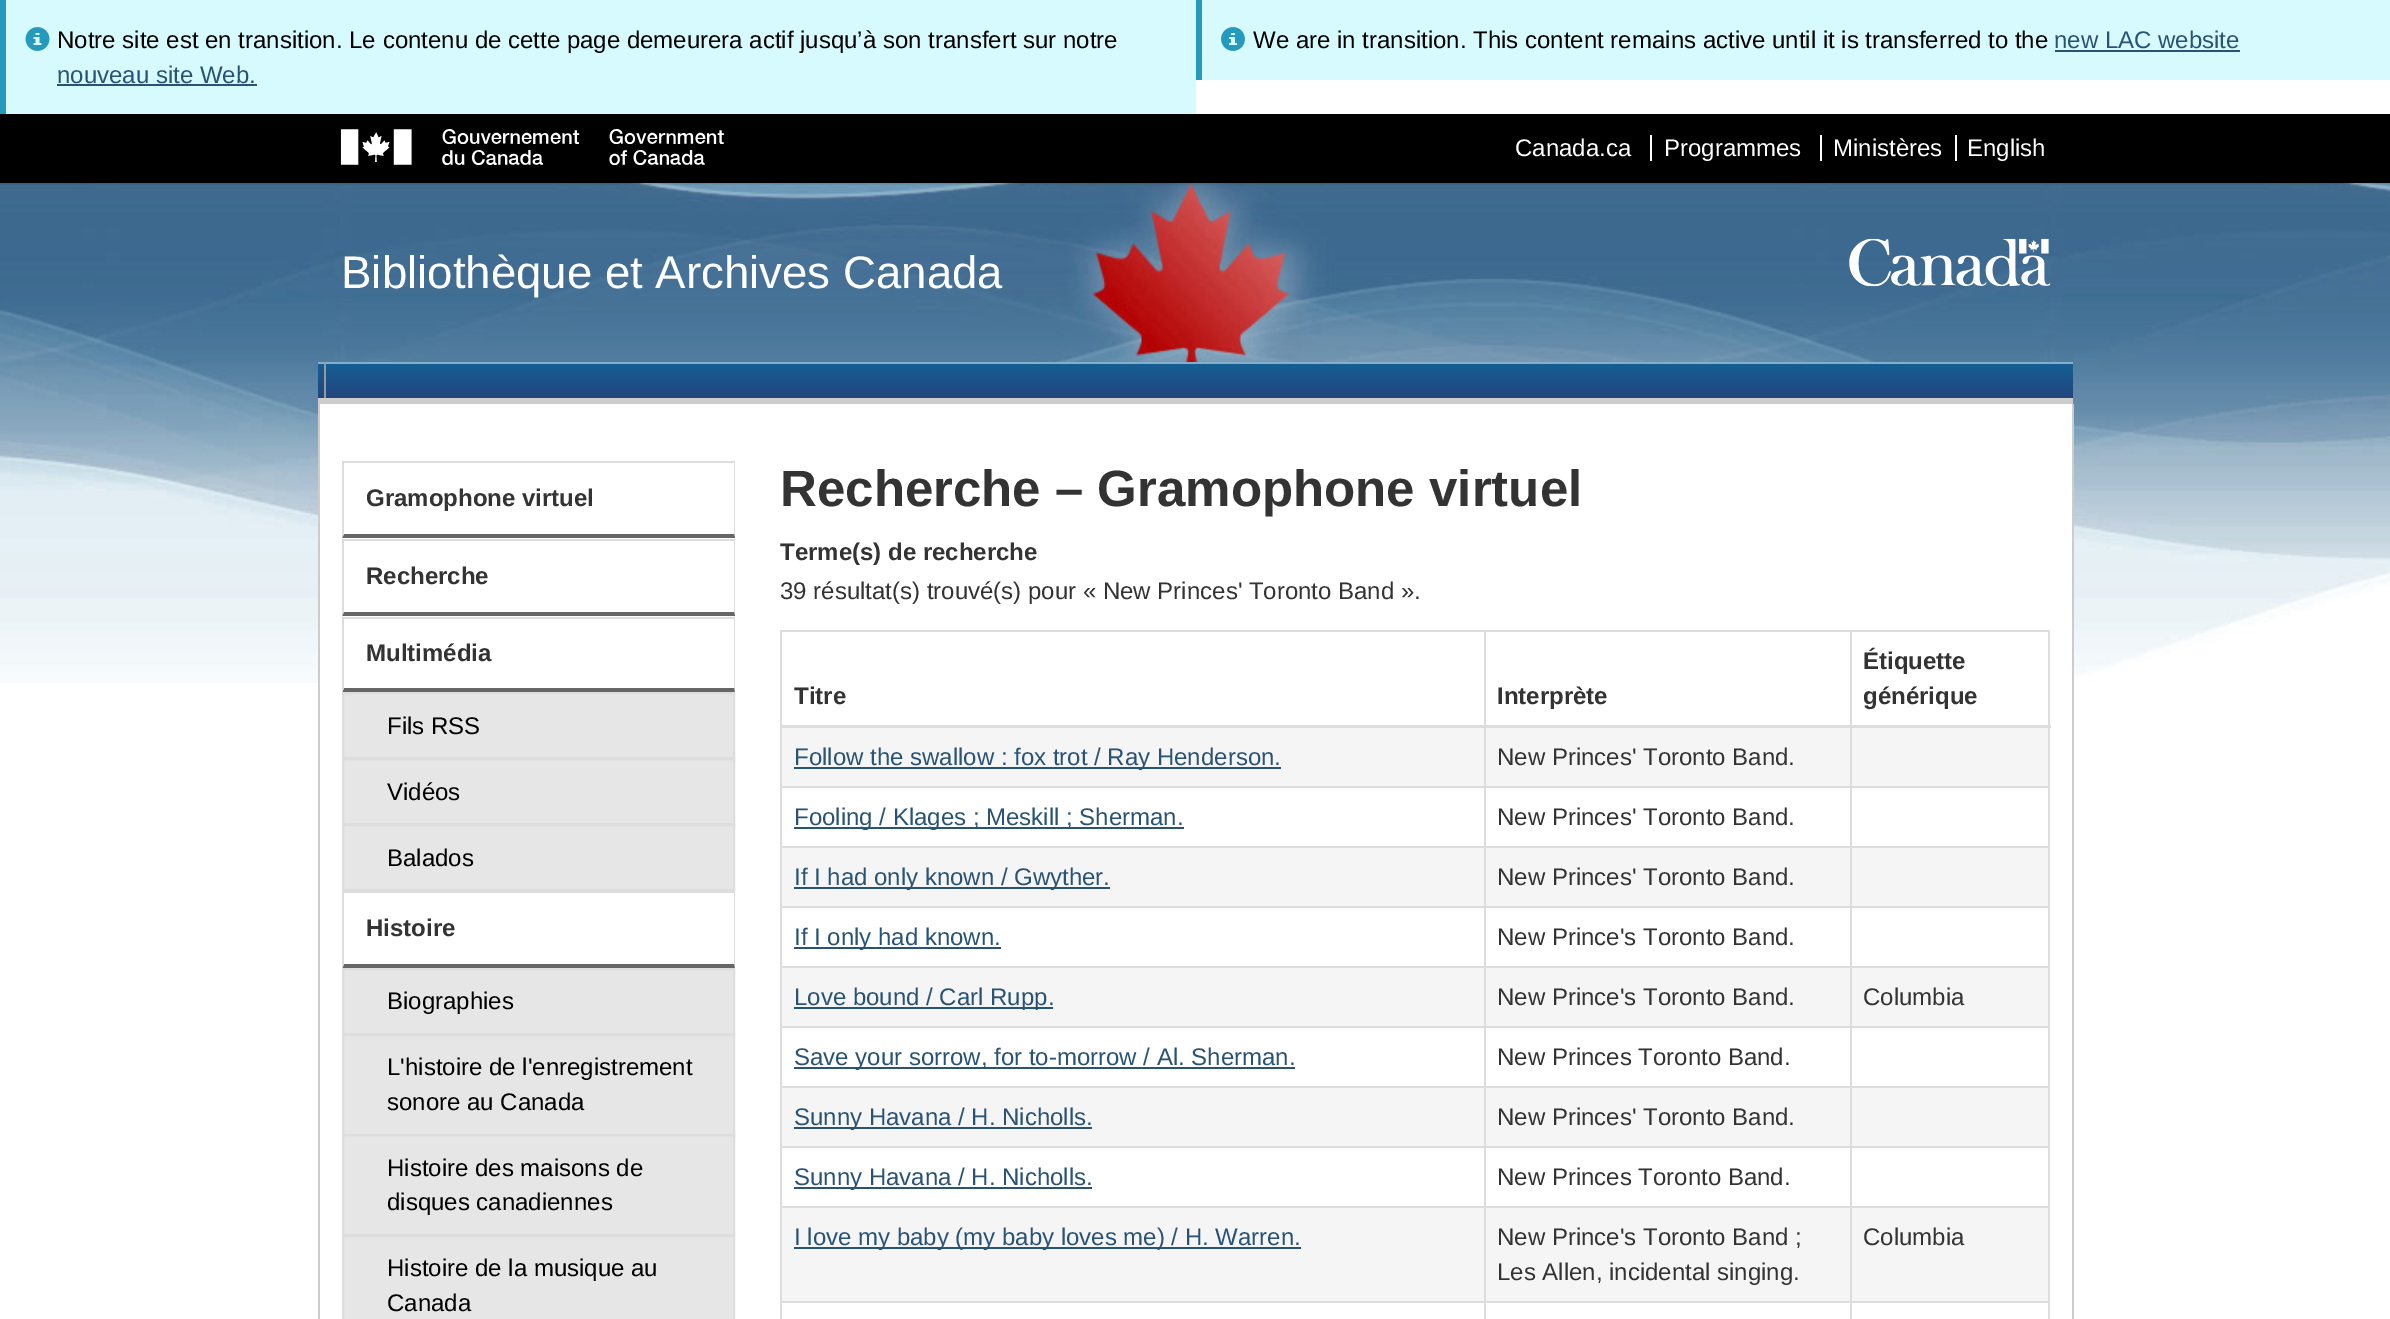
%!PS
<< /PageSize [2390 1319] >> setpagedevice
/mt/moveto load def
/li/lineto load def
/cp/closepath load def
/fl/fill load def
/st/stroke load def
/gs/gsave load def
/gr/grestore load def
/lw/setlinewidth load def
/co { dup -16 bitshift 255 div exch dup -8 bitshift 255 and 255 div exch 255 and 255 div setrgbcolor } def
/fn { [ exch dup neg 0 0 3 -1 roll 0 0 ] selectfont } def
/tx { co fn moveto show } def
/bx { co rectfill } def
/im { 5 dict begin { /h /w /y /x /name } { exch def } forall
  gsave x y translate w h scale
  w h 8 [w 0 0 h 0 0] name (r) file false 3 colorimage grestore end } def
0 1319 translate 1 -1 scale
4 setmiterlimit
0 0 2390 1319 16#FFFFFF bx
6 0 1190 114 16#D7FAFF bx
0 0 6 114 16#269ABC bx
(media/1.raw) 25 27 25 24 im
57 84 200 2 16#295376 bx
1202 0 1188 80 16#D7FAFF bx
1196 0 6 80 16#269ABC bx
(media/2.raw) 1221 27 24 24 im
2055 50 185 2 16#295376 bx
(media/3.raw) 0 183 2390 500 im
0 114 2390 69 16#000000 bx
(media/4.raw) 340 129 384 36 im
1650 135 2 26 16#FFFFFF bx
1820 135 2 26 16#FFFFFF bx
1955 135 2 26 16#FFFFFF bx
(media/5.raw) 1849 238 202 49 im
gs 318 364 mt 2073 364 li 2073 398 li 318 398 li cp clip newpath
<< /ShadingType 2 /ColorSpace /DeviceRGB /Coords [1196 363 1196 398] /Extend [true true] /Function << /FunctionType 2 /Domain [0 1] /C0 [.078 .376 .58] /C1 [.137 .267 .494] /N 1 >> >> shfill gr
318 362 1755 2 16#87AEC9 bx
318 398 1755 6 16#CCCCCC bx
324 363 2 35 16#999999 bx
320 404 1752 279 16#FFFFFF bx
2072 404 2 915 16#CCCCCC bx
318 404 2 915 16#CCCCCC bx
342 461 393 2 16#DDDDDD bx
735 460 mt 735 538 li 734 534 li 734 462 li cp fl
16#666666 co
735 538 mt 342 538 li 344 534 li 734 534 li cp fl
16#DDDDDD co
342 538 mt 342 460 li 344 462 li 344 534 li cp fl
342 539 393 2 16#DDDDDD bx
735 538 mt 735 616 li 734 612 li 734 540 li cp fl
16#666666 co
735 616 mt 342 616 li 344 612 li 734 612 li cp fl
16#DDDDDD co
342 616 mt 342 538 li 344 540 li 344 612 li cp fl
342 617 393 2 16#DDDDDD bx
735 616 mt 735 693 li 734 688 li 734 618 li cp fl
16#666666 co
735 693 mt 342 693 li 344 688 li 734 688 li cp fl
16#DDDDDD co
342 693 mt 342 616 li 344 618 li 344 688 li cp fl
16#E6E6E6 co
343 693 mt 734 693 li 734 758 li 343 758 li cp gs fl gr
16#DDDDDD co
2 lw
st
16#E6E6E6 co
343 759 mt 734 759 li 734 824 li 343 824 li cp gs fl gr
16#DDDDDD co
st
16#E6E6E6 co
343 825 mt 734 825 li 734 890 li 343 890 li cp gs fl gr
16#DDDDDD co
st
342 891 393 2 16#DDDDDD bx
735 891 mt 735 969 li 734 964 li 734 892 li cp fl
16#666666 co
735 969 mt 342 969 li 344 964 li 734 964 li cp fl
16#DDDDDD co
342 969 mt 342 891 li 344 892 li 344 964 li cp fl
16#E6E6E6 co
343 969 mt 734 969 li 734 1034 li 343 1034 li cp gs fl gr
16#DDDDDD co
st
16#E6E6E6 co
343 1035 mt 734 1035 li 734 1135 li 343 1135 li cp gs fl gr
16#DDDDDD co
st
16#E6E6E6 co
343 1135 mt 734 1135 li 734 1235 li 343 1235 li cp gs fl gr
16#DDDDDD co
st
16#E6E6E6 co
343 1236 mt 734 1236 li 734 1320 li 343 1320 li cp gs fl gr
16#DDDDDD co
st
780 630 1269 2 16#DDDDDD bx
2048 630 2 689 16#DDDDDD bx
780 630 2 689 16#DDDDDD bx
782 728 1266 58 16#F5F5F5 bx
1850 786 199 2 16#DDDDDD bx
1850 846 199 2 16#DDDDDD bx
782 848 1266 58 16#F5F5F5 bx
1850 906 199 2 16#DDDDDD bx
1850 966 199 2 16#DDDDDD bx
782 968 1266 58 16#F5F5F5 bx
1850 1026 199 2 16#DDDDDD bx
1850 1086 199 2 16#DDDDDD bx
782 1088 1266 58 16#F5F5F5 bx
1850 1146 199 2 16#DDDDDD bx
1850 1206 199 2 16#DDDDDD bx
782 1208 1266 93 16#F5F5F5 bx
1850 1301 199 2 16#DDDDDD bx
1850 1301 2 18 16#DDDDDD bx
1484 1301 367 2 16#DDDDDD bx
1850 1206 2 96 16#DDDDDD bx
1484 1206 367 2 16#DDDDDD bx
1850 1146 2 62 16#DDDDDD bx
1484 1146 367 2 16#DDDDDD bx
1850 1086 2 62 16#DDDDDD bx
1484 1086 367 2 16#DDDDDD bx
1850 1026 2 62 16#DDDDDD bx
1484 1026 367 2 16#DDDDDD bx
1850 966 2 62 16#DDDDDD bx
1484 966 367 2 16#DDDDDD bx
1850 906 2 62 16#DDDDDD bx
1484 906 367 2 16#DDDDDD bx
1850 846 2 62 16#DDDDDD bx
1484 846 367 2 16#DDDDDD bx
1850 786 2 62 16#DDDDDD bx
1484 786 367 2 16#DDDDDD bx
1484 1301 2 18 16#DDDDDD bx
780 1301 705 2 16#DDDDDD bx
1484 1206 2 96 16#DDDDDD bx
780 1206 705 2 16#DDDDDD bx
1484 1146 2 62 16#DDDDDD bx
780 1146 705 2 16#DDDDDD bx
1484 1086 2 62 16#DDDDDD bx
780 1086 705 2 16#DDDDDD bx
1484 1026 2 62 16#DDDDDD bx
780 1026 705 2 16#DDDDDD bx
1484 966 2 62 16#DDDDDD bx
780 966 705 2 16#DDDDDD bx
1484 906 2 62 16#DDDDDD bx
780 906 705 2 16#DDDDDD bx
1484 846 2 62 16#DDDDDD bx
780 846 705 2 16#DDDDDD bx
1484 786 2 62 16#DDDDDD bx
780 786 705 2 16#DDDDDD bx
1484 630 2 158 16#DDDDDD bx
1850 630 2 158 16#DDDDDD bx
780 725 1271 3 16#DDDDDD bx
794 767 487 2 16#295376 bx
794 827 390 2 16#295376 bx
794 887 316 2 16#295376 bx
794 947 207 2 16#295376 bx
794 1007 259 2 16#295376 bx
794 1067 501 2 16#295376 bx
794 1127 298 2 16#295376 bx
794 1187 298 2 16#295376 bx
794 1247 507 2 16#295376 bx
(Notre site est en transition. Le contenu de cette page demeurera actif jusqu’à son transfert sur notre) 57 48 /LiberationSans-Regular 24 16#000000 tx
(nouveau site Web.) 57 83 /LiberationSans-Regular 24 16#295376 tx
(We are in transition. This content remains active until it is transferred to the) 1253 48 /LiberationSans-Regular 24 16#000000 tx
(new LAC website) 2054 48 /LiberationSans-Regular 24 16#295376 tx
(Canada.ca) 1515 156 /LiberationSans-Regular 24 16#FFFFFF tx
(Programmes) 1664 156 /LiberationSans-Regular 24 16#FFFFFF tx
(Ministères) 1833 156 /LiberationSans-Regular 24 16#FFFFFF tx
(English) 1967 156 /LiberationSans-Regular 24 16#FFFFFF tx
(Bibliothèque et Archives Canada) 341 288 /LiberationSans-Regular 45.6 16#FFFFFF tx
(Gramophone virtuel) 366 506 /LiberationSans-Bold 24 16#333333 tx
(Recherche) 366 584 /LiberationSans-Bold 24 16#333333 tx
(Multimédia) 366 661 /LiberationSans-Bold 24 16#333333 tx
(Fils RSS) 387 734 /LiberationSans-Regular 24 16#000000 tx
(Vidéos) 387 800 /LiberationSans-Regular 24 16#000000 tx
(Balados) 387 866 /LiberationSans-Regular 24 16#000000 tx
(Histoire) 366 936 /LiberationSans-Bold 24 16#333333 tx
(Biographies) 387 1009 /LiberationSans-Regular 24 16#000000 tx
(L'histoire de l'enregistrement) 387 1075 /LiberationSans-Regular 24 16#000000 tx
(sonore au Canada) 387 1110 /LiberationSans-Regular 24 16#000000 tx
(Histoire des maisons de) 387 1176 /LiberationSans-Regular 24 16#000000 tx
(disques canadiennes) 387 1210 /LiberationSans-Regular 24 16#000000 tx
(Histoire de la musique au) 387 1276 /LiberationSans-Regular 24 16#000000 tx
(Canada) 387 1311 /LiberationSans-Regular 24 16#000000 tx
(Recherche – Gramophone virtuel) 780 506 /LiberationSans-Bold 51 16#333333 tx
(Terme\(s\) de recherche) 780 560 /LiberationSans-Bold 24 16#333333 tx
(39 résultat\(s\) trouvé\(s\) pour « New Princes' Toronto Band ».) 780 599 /LiberationSans-Regular 24 16#333333 tx
(Titre) 794 704 /LiberationSans-Bold 24 16#333333 tx
(Interprète) 1497 704 /LiberationSans-Bold 24 16#333333 tx
(Étiquette) 1863 669 /LiberationSans-Bold 24 16#333333 tx
(générique) 1863 704 /LiberationSans-Bold 24 16#333333 tx
(Follow the swallow : fox trot / Ray Henderson.) 794 765 /LiberationSans-Regular 24 16#295376 tx
(New Princes' Toronto Band.) 1497 765 /LiberationSans-Regular 24 16#333333 tx
(Fooling / Klages ; Meskill ; Sherman.) 794 825 /LiberationSans-Regular 24 16#295376 tx
(New Princes' Toronto Band.) 1497 825 /LiberationSans-Regular 24 16#333333 tx
(If I had only known / Gwyther.) 794 885 /LiberationSans-Regular 24 16#295376 tx
(New Princes' Toronto Band.) 1497 885 /LiberationSans-Regular 24 16#333333 tx
(If I only had known.) 794 945 /LiberationSans-Regular 24 16#295376 tx
(New Prince's Toronto Band.) 1497 945 /LiberationSans-Regular 24 16#333333 tx
(Love bound / Carl Rupp.) 794 1005 /LiberationSans-Regular 24 16#295376 tx
(New Prince's Toronto Band.) 1497 1005 /LiberationSans-Regular 24 16#333333 tx
(Columbia) 1863 1005 /LiberationSans-Regular 24 16#333333 tx
(Save your sorrow, for to-morrow / Al. Sherman.) 794 1065 /LiberationSans-Regular 24 16#295376 tx
(New Princes Toronto Band.) 1497 1065 /LiberationSans-Regular 24 16#333333 tx
(Sunny Havana / H. Nicholls.) 794 1125 /LiberationSans-Regular 24 16#295376 tx
(New Princes' Toronto Band.) 1497 1125 /LiberationSans-Regular 24 16#333333 tx
(Sunny Havana / H. Nicholls.) 794 1185 /LiberationSans-Regular 24 16#295376 tx
(New Princes Toronto Band.) 1497 1185 /LiberationSans-Regular 24 16#333333 tx
(I love my baby \(my baby loves me\) / H. Warren.) 794 1245 /LiberationSans-Regular 24 16#295376 tx
(New Prince's Toronto Band ;) 1497 1245 /LiberationSans-Regular 24 16#333333 tx
(Les Allen, incidental singing.) 1497 1280 /LiberationSans-Regular 24 16#333333 tx
(Columbia) 1863 1245 /LiberationSans-Regular 24 16#333333 tx
showpage
